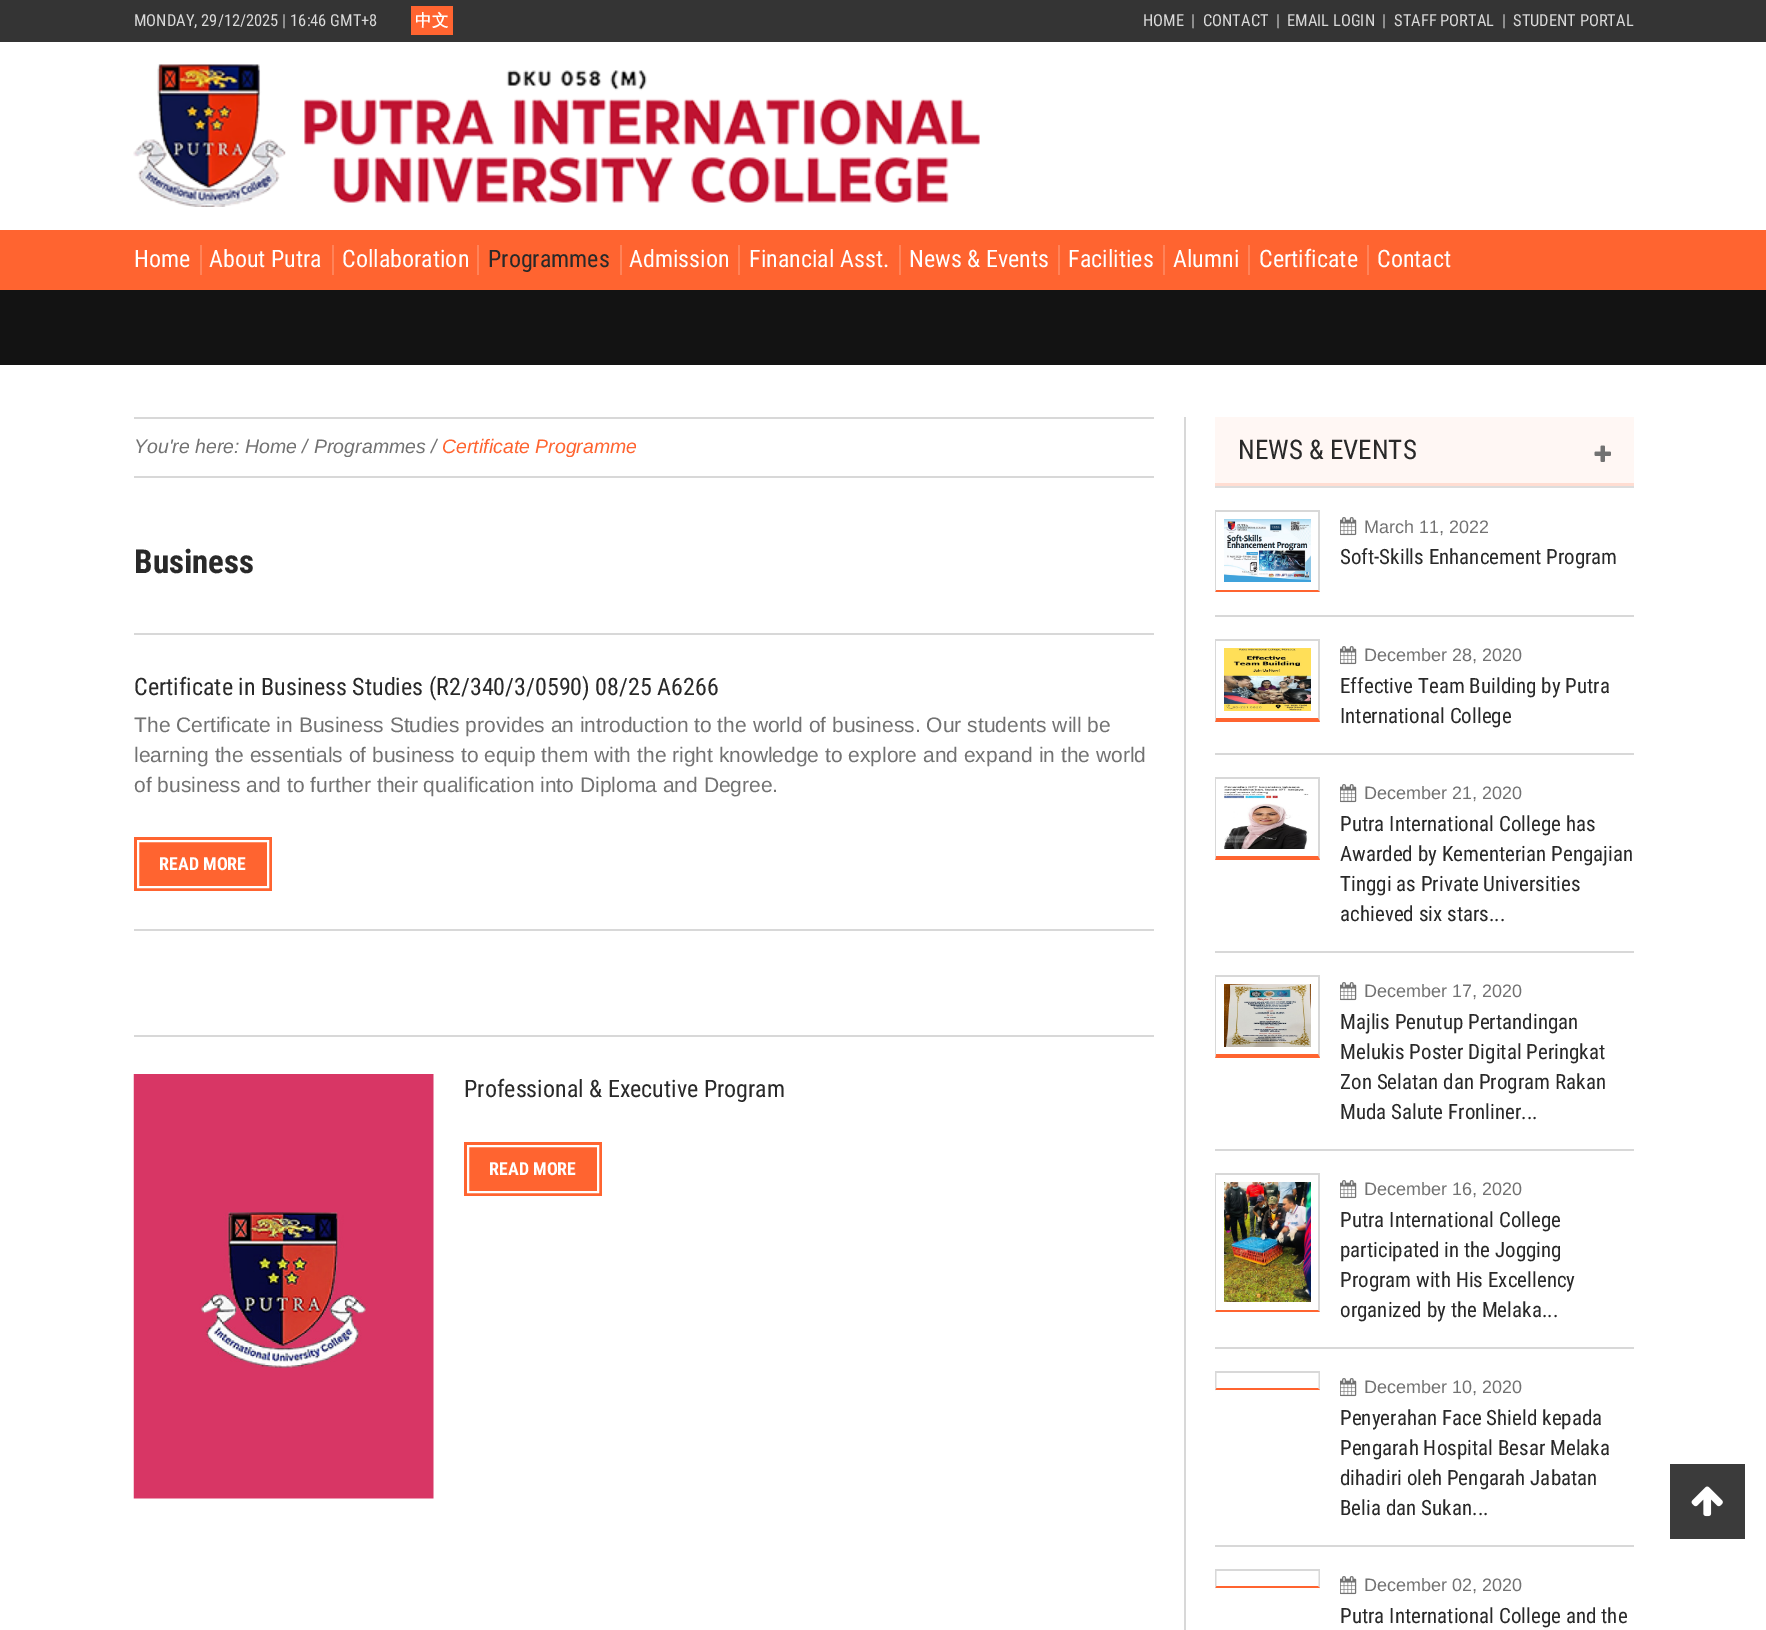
%!PS
<< /PageSize [1766 1630] >> setpagedevice
/mt/moveto load def
/li/lineto load def
/cp/closepath load def
/fl/fill load def
/lw/setlinewidth load def
/co { dup -16 bitshift 255 div exch dup -8 bitshift 255 and 255 div exch 255 and 255 div setrgbcolor } def
/fn { [ exch dup neg 0 0 3 -1 roll 0 0 ] selectfont } def
/tx { co fn moveto show } def
/bx { co rectfill } def
/im { 5 dict begin { /h /w /y /x /name } { exch def } forall
  gsave x y translate w h scale
  w h 8 [w 0 0 h 0 0] name (r) file false 3 colorimage grestore end } def
0 1630 translate 1 -1 scale
4 setmiterlimit
0 0 1766 1630 16#FFFFFF bx
0 0 1766 42 16#343434 bx
411 6 42 29 16#FF6430 bx
(media/1.raw) 133 64 847 143 im
0 230 1766 60 16#FF6430 bx
200 245 2 30 16#FF8359 bx
332 245 2 30 16#FF8359 bx
477 245 2 30 16#FF8359 bx
620 245 2 30 16#FF8359 bx
738 245 2 30 16#FF8359 bx
899 245 2 30 16#FF8359 bx
1058 245 2 30 16#FF8359 bx
1163 245 2 30 16#FF8359 bx
1248 245 2 30 16#FF8359 bx
1367 245 2 30 16#FF8359 bx
0 290 1766 75 16#131313 bx
1184 417 2 1213 16#D8D8D8 bx
134 417 1020 2 16#D8D8D8 bx
134 476 1020 2 16#D8D8D8 bx
134 633 1020 2 16#D8D8D8 bx
134 837 138 54 16#FF6430 bx
16#FFFFFF co
2 lw
138 841 130 46 rectstroke
134 929 1020 2 16#D8D8D8 bx
134 1035 1020 2 16#D8D8D8 bx
(media/2.raw) 133 1074 301 425 im
464 1142 138 54 16#FF6430 bx
16#FFFFFF co
468 1146 130 46 rectstroke
1215 417 419 66 16#FFF7F4 bx
1215 483 419 3 16#FFDDD2 bx
(media/3.raw) 1594 445 17 17 im
1215 486 419 2 16#DDDDDD bx
1215 510 105 2 16#D8D8D8 bx
1320 510 mt 1320 592 li 1318 590 li 1318 512 li cp fl
16#FF6430 co
1320 592 mt 1215 592 li 1216 590 li 1318 590 li cp fl
16#D8D8D8 co
1215 592 mt 1215 510 li 1216 512 li 1216 590 li cp fl
(media/4.raw) 1224 519 87 63 im
(media/5.raw) 1340 517 17 19 im
1215 615 419 2 16#D8D8D8 bx
1215 639 105 2 16#D8D8D8 bx
1320 639 mt 1320 722 li 1318 718 li 1318 640 li cp fl
16#FF6430 co
1320 722 mt 1215 722 li 1216 718 li 1318 718 li cp fl
16#D8D8D8 co
1215 722 mt 1215 639 li 1216 640 li 1216 718 li cp fl
(media/6.raw) 1224 648 87 63 im
(media/5.raw) 1340 646 17 19 im
1215 753 419 2 16#D8D8D8 bx
1215 777 105 2 16#D8D8D8 bx
1320 777 mt 1320 860 li 1318 856 li 1318 778 li cp fl
16#FF6430 co
1320 860 mt 1215 860 li 1216 856 li 1318 856 li cp fl
16#D8D8D8 co
1215 860 mt 1215 777 li 1216 778 li 1216 856 li cp fl
(media/7.raw) 1224 786 85 63 im
(media/5.raw) 1340 784 17 19 im
1215 951 419 2 16#D8D8D8 bx
1215 975 105 2 16#D8D8D8 bx
1320 975 mt 1320 1058 li 1318 1054 li 1318 976 li cp fl
16#FF6430 co
1320 1058 mt 1215 1058 li 1216 1054 li 1318 1054 li cp fl
16#D8D8D8 co
1215 1058 mt 1215 975 li 1216 976 li 1216 1054 li cp fl
(media/8.raw) 1224 984 87 63 im
(media/5.raw) 1340 982 17 19 im
1215 1149 419 2 16#D8D8D8 bx
1215 1173 105 2 16#D8D8D8 bx
1320 1173 mt 1320 1312 li 1318 1310 li 1318 1174 li cp fl
16#FF6430 co
1320 1312 mt 1215 1312 li 1216 1310 li 1318 1310 li cp fl
16#D8D8D8 co
1215 1312 mt 1215 1173 li 1216 1174 li 1216 1310 li cp fl
(media/9.raw) 1224 1182 87 120 im
(media/5.raw) 1340 1180 17 19 im
1215 1347 419 2 16#D8D8D8 bx
1215 1371 105 2 16#D8D8D8 bx
1320 1371 mt 1320 1390.5 li 1318.5 1387.5 li 1318.5 1372.5 li cp fl
16#FF6430 co
1320 1390 mt 1215 1390 li 1216 1388 li 1318 1388 li cp fl
16#D8D8D8 co
1215 1390.5 mt 1215 1371 li 1216.5 1372.5 li 1216.5 1387.5 li cp fl
(media/5.raw) 1340 1378 17 19 im
1215 1545 419 2 16#D8D8D8 bx
1215 1569 105 2 16#D8D8D8 bx
1320 1569 mt 1320 1588.5 li 1318.5 1585.5 li 1318.5 1570.5 li cp fl
16#FF6430 co
1320 1588 mt 1215 1588 li 1216 1586 li 1318 1586 li cp fl
16#D8D8D8 co
1215 1588.5 mt 1215 1569 li 1216.5 1570.5 li 1216.5 1585.5 li cp fl
(media/5.raw) 1340 1576 17 19 im
1670 1464 75 75 16#3B3B3B bx
(media/10.raw) 1691 1486 32 31 im
(MONDAY, 29/12/2025 | 16:46 GMT+8) 134 26 /RobotoCondensed-Regular 16.5 16#DADADA tx
(中文) 415 26 /WenQuanYiZenHei-Bold 16.5 16#FFFFFF tx
(HOME) 1143 26 /RobotoCondensed-Regular 16.5 16#DADADA tx
(|) 1191 26 /RobotoCondensed-Regular 16.5 16#DADADA tx
(CONTACT) 1203 26 /RobotoCondensed-Regular 16.5 16#DADADA tx
(|) 1276 26 /RobotoCondensed-Regular 16.5 16#DADADA tx
(EMAIL LOGIN) 1287 26 /RobotoCondensed-Regular 16.5 16#DADADA tx
(|) 1382 26 /RobotoCondensed-Regular 16.5 16#DADADA tx
(STAFF PORTAL) 1394 26 /RobotoCondensed-Regular 16.5 16#DADADA tx
(|) 1502 26 /RobotoCondensed-Regular 16.5 16#DADADA tx
(STUDENT PORTAL) 1513 26 /RobotoCondensed-Regular 16.5 16#DADADA tx
(Home) 134 267 /RobotoCondensed-Regular 24 16#FFFFFF tx
(About Putra) 209 267 /RobotoCondensed-Regular 24 16#FFFFFF tx
(Collaboration) 342 267 /RobotoCondensed-Regular 24 16#FFFFFF tx
(Programmes) 488 267 /RobotoCondensed-Regular 24 16#292929 tx
(Admission) 629 267 /RobotoCondensed-Regular 24 16#FFFFFF tx
(Financial Asst.) 749 267 /RobotoCondensed-Regular 24 16#FFFFFF tx
(News & Events) 909 267 /RobotoCondensed-Regular 24 16#FFFFFF tx
(Facilities) 1068 267 /RobotoCondensed-Regular 24 16#FFFFFF tx
(Alumni) 1173 267 /RobotoCondensed-Regular 24 16#FFFFFF tx
(Certificate) 1259 267 /RobotoCondensed-Regular 24 16#FFFFFF tx
(Contact) 1377 267 /RobotoCondensed-Regular 24 16#FFFFFF tx
(You're here:) 134 453 /LiberationSans-Italic 19.5 16#727272 tx
(Home /) 245 453 /LiberationSans-Italic 19.5 16#727272 tx
(Programmes /) 314 453 /LiberationSans-Italic 19.5 16#727272 tx
(Certificate Programme) 442 453 /LiberationSans-Italic 19.5 16#FF6430 tx
(Business) 134 573 /RobotoCondensed-Bold 33 16#292929 tx
(Certificate in Business Studies \(R2/340/3/0590\) 08/25 A6266) 134 695 /RobotoCondensed-Regular 24 16#292929 tx
(The Certificate in Business Studies provides an introduction to the world of business. Our students will be) 134 732 /LiberationSans-Regular 21 16#727272 tx
(learning the essentials of business to equip them with the right knowledge to explore and expand in the world) 134 762 /LiberationSans-Regular 21 16#727272 tx
(of business and to further their qualification into Diploma and Degree.) 134 792 /LiberationSans-Regular 21 16#727272 tx
(READ MORE) 159 870 /RobotoCondensed-Bold 18 16#FFFFFF tx
(Professional & Executive Program) 464 1097 /RobotoCondensed-Regular 24 16#292929 tx
(READ MORE) 489 1175 /RobotoCondensed-Bold 18 16#FFFFFF tx
(NEWS & EVENTS) 1238 459 /RobotoCondensed-Regular 27 16#292929 tx
(March 11, 2022) 1364 533 /LiberationSans-Regular 18 16#727272 tx
(Soft-Skills Enhancement Program) 1340 564 /RobotoCondensed-Regular 21 16#292929 tx
(December 28, 2020) 1364 661 /LiberationSans-Regular 18 16#727272 tx
(Effective Team Building by Putra) 1340 693 /RobotoCondensed-Regular 21 16#292929 tx
(International College) 1340 723 /RobotoCondensed-Regular 21 16#292929 tx
(December 21, 2020) 1364 799 /LiberationSans-Regular 18 16#727272 tx
(Putra International College has) 1340 831 /RobotoCondensed-Regular 21 16#292929 tx
(Awarded by Kementerian Pengajian) 1340 861 /RobotoCondensed-Regular 21 16#292929 tx
(Tinggi as Private Universities) 1340 891 /RobotoCondensed-Regular 21 16#292929 tx
(achieved six stars...) 1340 921 /RobotoCondensed-Regular 21 16#292929 tx
(December 17, 2020) 1364 997 /LiberationSans-Regular 18 16#727272 tx
(Majlis Penutup Pertandingan) 1340 1029 /RobotoCondensed-Regular 21 16#292929 tx
(Melukis Poster Digital Peringkat) 1340 1059 /RobotoCondensed-Regular 21 16#292929 tx
(Zon Selatan dan Program Rakan) 1340 1089 /RobotoCondensed-Regular 21 16#292929 tx
(Muda Salute Fronliner...) 1340 1119 /RobotoCondensed-Regular 21 16#292929 tx
(December 16, 2020) 1364 1195 /LiberationSans-Regular 18 16#727272 tx
(Putra International College) 1340 1227 /RobotoCondensed-Regular 21 16#292929 tx
(participated in the Jogging) 1340 1257 /RobotoCondensed-Regular 21 16#292929 tx
(Program with His Excellency) 1340 1287 /RobotoCondensed-Regular 21 16#292929 tx
(organized by the Melaka...) 1340 1317 /RobotoCondensed-Regular 21 16#292929 tx
(December 10, 2020) 1364 1393 /LiberationSans-Regular 18 16#727272 tx
(Penyerahan Face Shield kepada) 1340 1425 /RobotoCondensed-Regular 21 16#292929 tx
(Pengarah Hospital Besar Melaka) 1340 1455 /RobotoCondensed-Regular 21 16#292929 tx
(dihadiri oleh Pengarah Jabatan) 1340 1485 /RobotoCondensed-Regular 21 16#292929 tx
(Belia dan Sukan...) 1340 1515 /RobotoCondensed-Regular 21 16#292929 tx
(December 02, 2020) 1364 1591 /LiberationSans-Regular 18 16#727272 tx
(Putra International College and the) 1340 1623 /RobotoCondensed-Regular 21 16#292929 tx
showpage
